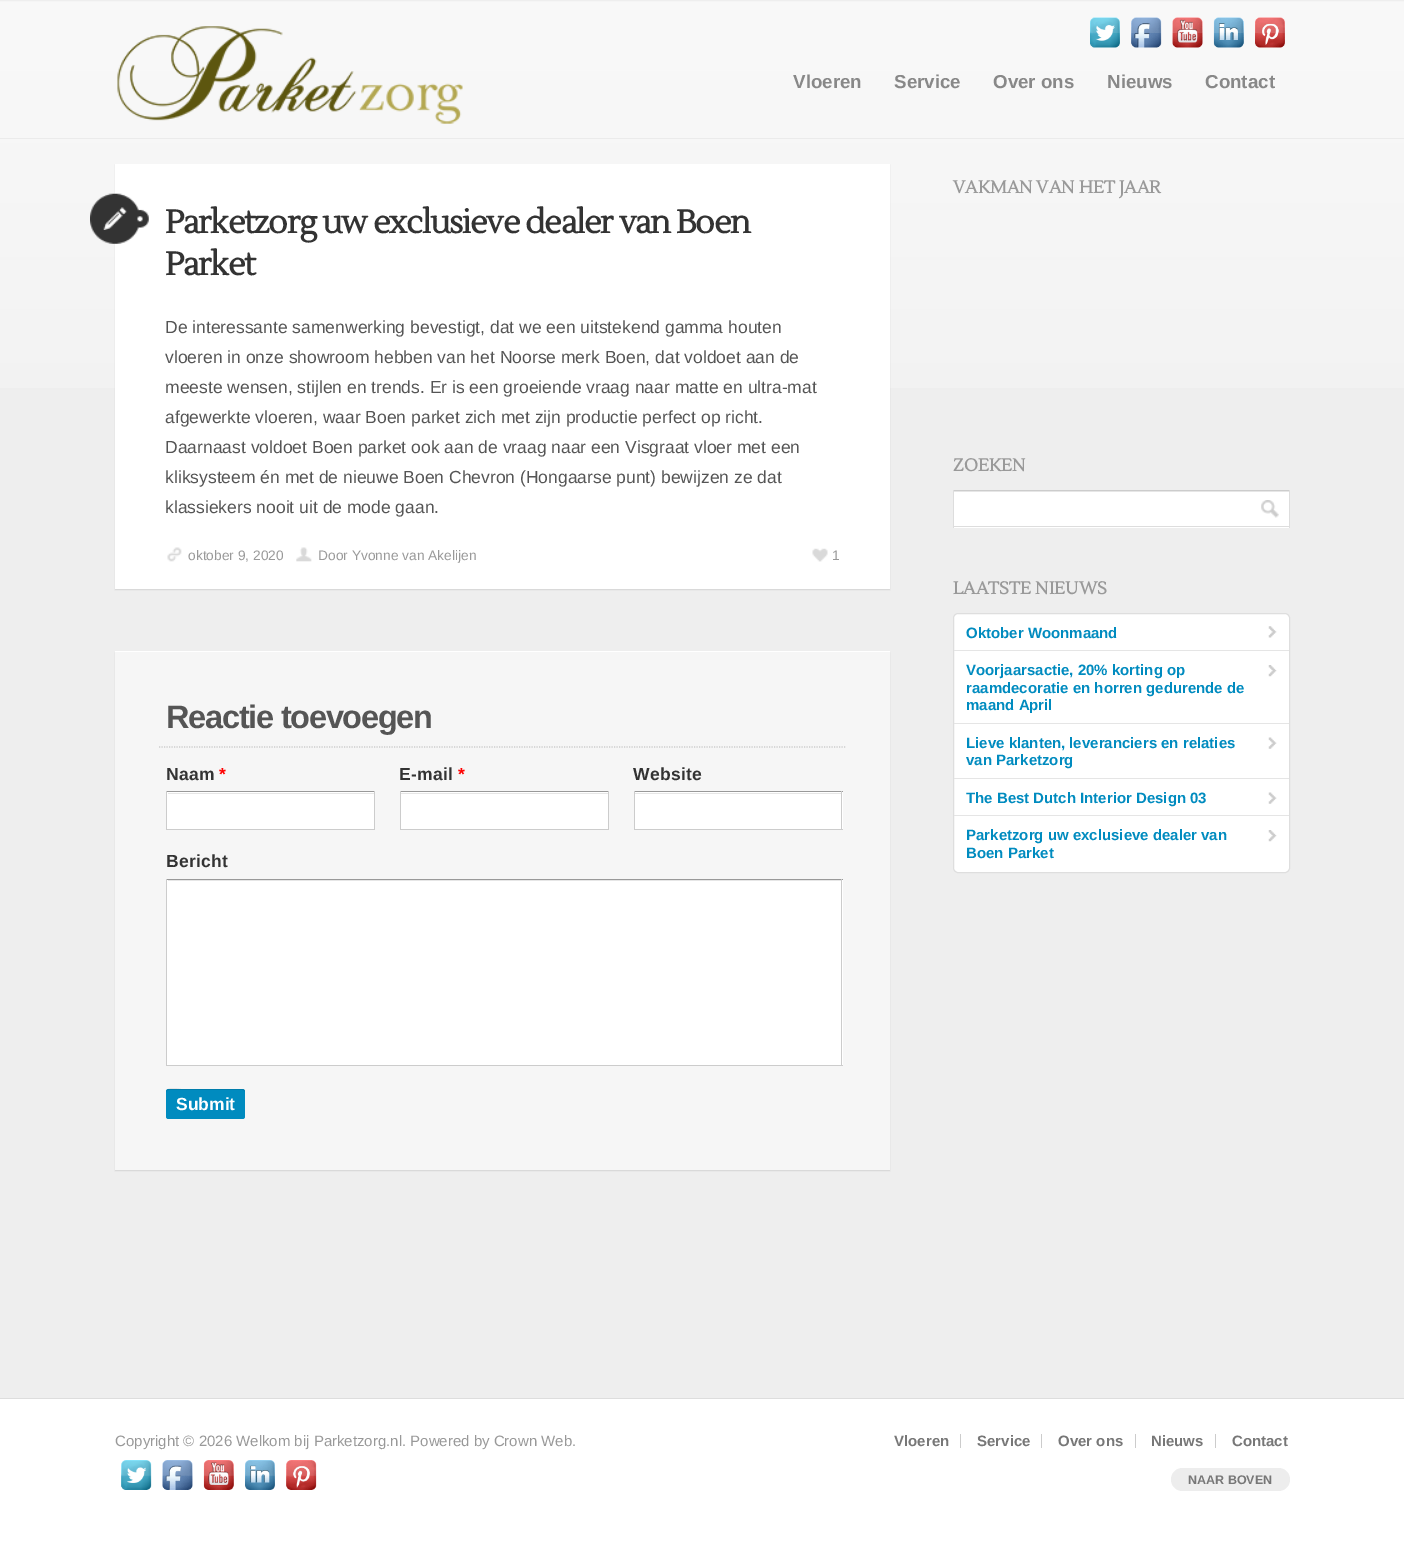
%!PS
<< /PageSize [1404 1559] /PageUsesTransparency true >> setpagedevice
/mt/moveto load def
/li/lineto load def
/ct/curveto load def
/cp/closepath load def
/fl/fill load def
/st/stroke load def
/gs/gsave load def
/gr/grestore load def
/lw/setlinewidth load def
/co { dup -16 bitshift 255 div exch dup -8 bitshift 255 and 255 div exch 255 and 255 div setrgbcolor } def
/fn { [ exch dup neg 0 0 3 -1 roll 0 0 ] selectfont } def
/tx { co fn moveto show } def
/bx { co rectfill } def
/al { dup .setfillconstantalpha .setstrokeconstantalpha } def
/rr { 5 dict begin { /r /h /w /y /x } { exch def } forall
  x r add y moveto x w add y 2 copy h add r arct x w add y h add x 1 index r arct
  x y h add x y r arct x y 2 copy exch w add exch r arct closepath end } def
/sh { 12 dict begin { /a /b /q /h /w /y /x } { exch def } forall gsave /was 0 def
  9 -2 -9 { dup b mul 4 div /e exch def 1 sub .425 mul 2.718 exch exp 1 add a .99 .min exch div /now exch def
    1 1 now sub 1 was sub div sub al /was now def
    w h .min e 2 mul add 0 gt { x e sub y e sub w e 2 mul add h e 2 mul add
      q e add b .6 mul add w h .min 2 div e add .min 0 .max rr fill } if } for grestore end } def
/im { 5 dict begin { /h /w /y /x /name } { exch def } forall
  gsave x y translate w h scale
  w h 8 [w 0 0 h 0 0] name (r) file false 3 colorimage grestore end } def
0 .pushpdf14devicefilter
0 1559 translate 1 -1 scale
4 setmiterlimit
0 0 1404 1559 16#EEEEEE bx
(media/1.raw) 0 1 1404 387 im
0 138 1404 1 16#EBEBEB bx
(media/2.raw) 117 26 346 98 im
(media/3.raw) 1090 17 30 31 im
(media/4.raw) 1131 17 31 31 im
(media/5.raw) 1172 17 31 31 im
(media/6.raw) 1213 17 31 31 im
(media/7.raw) 1255 17 30 31 im
16#000000 co
115 165 775 425 0 .5 .1 sh
115 164 775 425 16#FFFFFF bx
(media/8.raw) 90 193 59 51 im
(media/9.raw) 103 207 24 23 im
(media/10.raw) 167 547 15 15 im
(media/11.raw) 296 547 16 15 im
(media/12.raw) 812 548 16 14 im
16#000000 co
115 653 775 518 0 .5 .1 sh
115 652 775 518 16#F6F6F6 bx
115 651 775 1 16#FFFFFF bx
16#CCCCCC co
1.2 lw
[1.25 1.25] 0 setdash
159 747 mt 846 747 li st
167 792 207 37 16#FFFFFF bx
168 793 206 1 16#E6E6E6 bx
166 791 209 1 16#999999 bx
374 791 1 39 16#CCCCCC bx
166 829 209 1 16#CCCCCC bx
166 791 1 39 16#CCCCCC bx
401 792 207 37 16#FFFFFF bx
401 793 207 1 16#E6E6E6 bx
400 791 209 1 16#999999 bx
608 791 1 39 16#CCCCCC bx
400 829 209 1 16#CCCCCC bx
400 791 1 39 16#CCCCCC bx
635 792 208 37 16#FFFFFF bx
635 793 206 1 16#E6E6E6 bx
634 791 209 1 16#999999 bx
841 791 1 39 16#CCCCCC bx
634 829 209 1 16#CCCCCC bx
634 791 1 39 16#CCCCCC bx
167 880 676 185 16#FFFFFF bx
168 880 673 1 16#E6E6E6 bx
166 879 677 1 16#999999 bx
841 879 1 187 16#CCCCCC bx
166 1065 677 1 16#CCCCCC bx
166 879 1 187 16#CCCCCC bx
16#008BBF co
166 1089 79 30 2.5 rr fl
0.1 al
16#000000 co
169 1090 mt 242 1090 li 244 1090 245 1091 245 1092 ct 245 1090 244 1089 242 1089 ct 181 1089 li 180 1089 166 1086 166 1092 ct 166 1091 167 1090 169 1090 ct cp fl
1 al
954 492 335 36 16#FFFFFF bx
(media/13.raw) 1261 500 18 18 im
954 491 335 1 16#E6E6E6 bx
953 490 337 1 16#CCCCCC bx
1289 490 1 38 16#DDDDDD bx
953 526 337 1 16#DDDDDD bx
953 490 1 38 16#DDDDDD bx
16#FFFFFF co
953.5 613.5 336 259 4.5 rr gs fl gr
16#DEDEDE co
1 lw
[] 0 setdash
st
(media/14.raw) 1268 626 9 12 im
954 650 335 1 16#E5E5E5 bx
(media/15.raw) 1268 665 9 12 im
954 723 335 1 16#E5E5E5 bx
(media/16.raw) 1268 737 9 12 im
954 778 335 1 16#E5E5E5 bx
(media/16.raw) 1268 792 9 12 im
954 815 335 1 16#E5E5E5 bx
(media/15.raw) 1268 830 9 12 im
0 1399 1404 160 16#FFFFFF bx
0 1398 1404 1 16#DDDDDD bx
960 1434 1 14 16#CCCCCC bx
1041 1434 1 14 16#CCCCCC bx
1135 1434 1 14 16#CCCCCC bx
1215 1434 1 14 16#CCCCCC bx
(media/17.raw) 121 1460 31 30 im
(media/18.raw) 162 1460 31 30 im
(media/19.raw) 203 1460 31 30 im
(media/20.raw) 245 1460 30 30 im
(media/21.raw) 286 1460 31 30 im
16#EDEDED co
1171 1468 119 23 11.5 rr fl
(Vloeren) 793 88 /LiberationSans-Bold 18.75 16#888888 tx
(Service) 894 88 /LiberationSans-Bold 18.75 16#888888 tx
(Over ons) 993 88 /LiberationSans-Bold 18.75 16#888888 tx
(Nieuws) 1107 88 /LiberationSans-Bold 18.75 16#888888 tx
(Contact) 1205 88 /LiberationSans-Bold 18.75 16#888888 tx
/Lustria-Bold 32.5 fn
16#333333 co
165 233 mt -1.25 0 (Parketzorg uw exclusieve dealer van Boen) ashow
165 275 mt -1.25 0 (Parket) ashow
(De interessante samenwerking bevestigt, dat we een uitstekend gamma houten) 165 333 /LiberationSans-Regular 17.5 16#555555 tx
(vloeren in onze showroom hebben van het Noorse merk Boen, dat voldoet aan de) 165 363 /LiberationSans-Regular 17.5 16#555555 tx
(meeste wensen, stijlen en trends. Er is een groeiende vraag naar matte en ultra-mat) 165 393 /LiberationSans-Regular 17.5 16#555555 tx
(afgewerkte vloeren, waar Boen parket zich met zijn productie perfect op richt.) 165 423 /LiberationSans-Regular 17.5 16#555555 tx
(Daarnaast voldoet Boen parket ook aan de vraag naar een Visgraat vloer met een) 165 453 /LiberationSans-Regular 17.5 16#555555 tx
(kliksysteem én met de nieuwe Boen Chevron \(Hongaarse punt\) bewijzen ze dat) 165 483 /LiberationSans-Regular 17.5 16#555555 tx
(klassiekers nooit uit de mode gaan.) 165 513 /LiberationSans-Regular 17.5 16#555555 tx
(oktober 9, 2020) 188 560 /LiberationSans-Regular 13.75 16#999999 tx
(Door Yvonne van Akelijen) 318 560 /LiberationSans-Regular 13.75 16#999999 tx
(1) 832 560 /LiberationSans-Regular 13.75 16#999999 tx
/LiberationSans-Bold 32.5 fn
16#555555 co
166 728 mt -1.25 0 (Reactie toevoegen) ashow
/LiberationSans-Bold 17.5 fn
16#333333 co
166 780 mt .25 0 (Naam) ashow
16#FF0000 co
219 780 mt .25 0 (*) ashow
16#333333 co
399 780 mt .25 0 (E-mail) ashow
16#FF0000 co
458 780 mt .25 0 (*) ashow
16#333333 co
633 780 mt .25 0 (Website) ashow
166 867 mt .25 0 (Bericht) ashow
(Submit) 176 1110 /LiberationSans-Bold 17.5 16#FFFFFF tx
(VAKMAN VAN HET JAAR) 953 193 /Lustria-Bold 17.5 16#999999 tx
(ZOEKEN) 953 471 /Lustria-Bold 17.5 16#999999 tx
(LAATSTE NIEUWS) 953 594 /Lustria-Bold 17.5 16#999999 tx
(Oktober Woonmaand) 966 638 /LiberationSans-Bold 15 16#008BBF tx
(Voorjaarsactie, 20% korting op) 966 675 /LiberationSans-Bold 15 16#008BBF tx
(raamdecoratie en horren gedurende de) 966 693 /LiberationSans-Bold 15 16#008BBF tx
(maand April) 966 710 /LiberationSans-Bold 15 16#008BBF tx
(Lieve klanten, leveranciers en relaties) 966 748 /LiberationSans-Bold 15 16#008BBF tx
(van Parketzorg) 966 765 /LiberationSans-Bold 15 16#008BBF tx
(The Best Dutch Interior Design 03) 966 803 /LiberationSans-Bold 15 16#008BBF tx
(Parketzorg uw exclusieve dealer van) 966 840 /LiberationSans-Bold 15 16#008BBF tx
(Boen Parket) 966 858 /LiberationSans-Bold 15 16#008BBF tx
(Copyright © 2026 Welkom bij Parketzorg.nl. Powered by Crown Web.) 115 1446 /LiberationSans-Regular 15 16#999999 tx
(Vloeren) 894 1446 /LiberationSans-Bold 15 16#777777 tx
(Service) 977 1446 /LiberationSans-Bold 15 16#777777 tx
(Over ons) 1058 1446 /LiberationSans-Bold 15 16#777777 tx
(Nieuws) 1151 1446 /LiberationSans-Bold 15 16#777777 tx
(Contact) 1232 1446 /LiberationSans-Bold 15 16#777777 tx
(NAAR BOVEN) 1188 1484 /LiberationSans-Bold 12.5 16#777777 tx
.poppdf14devicefilter showpage
